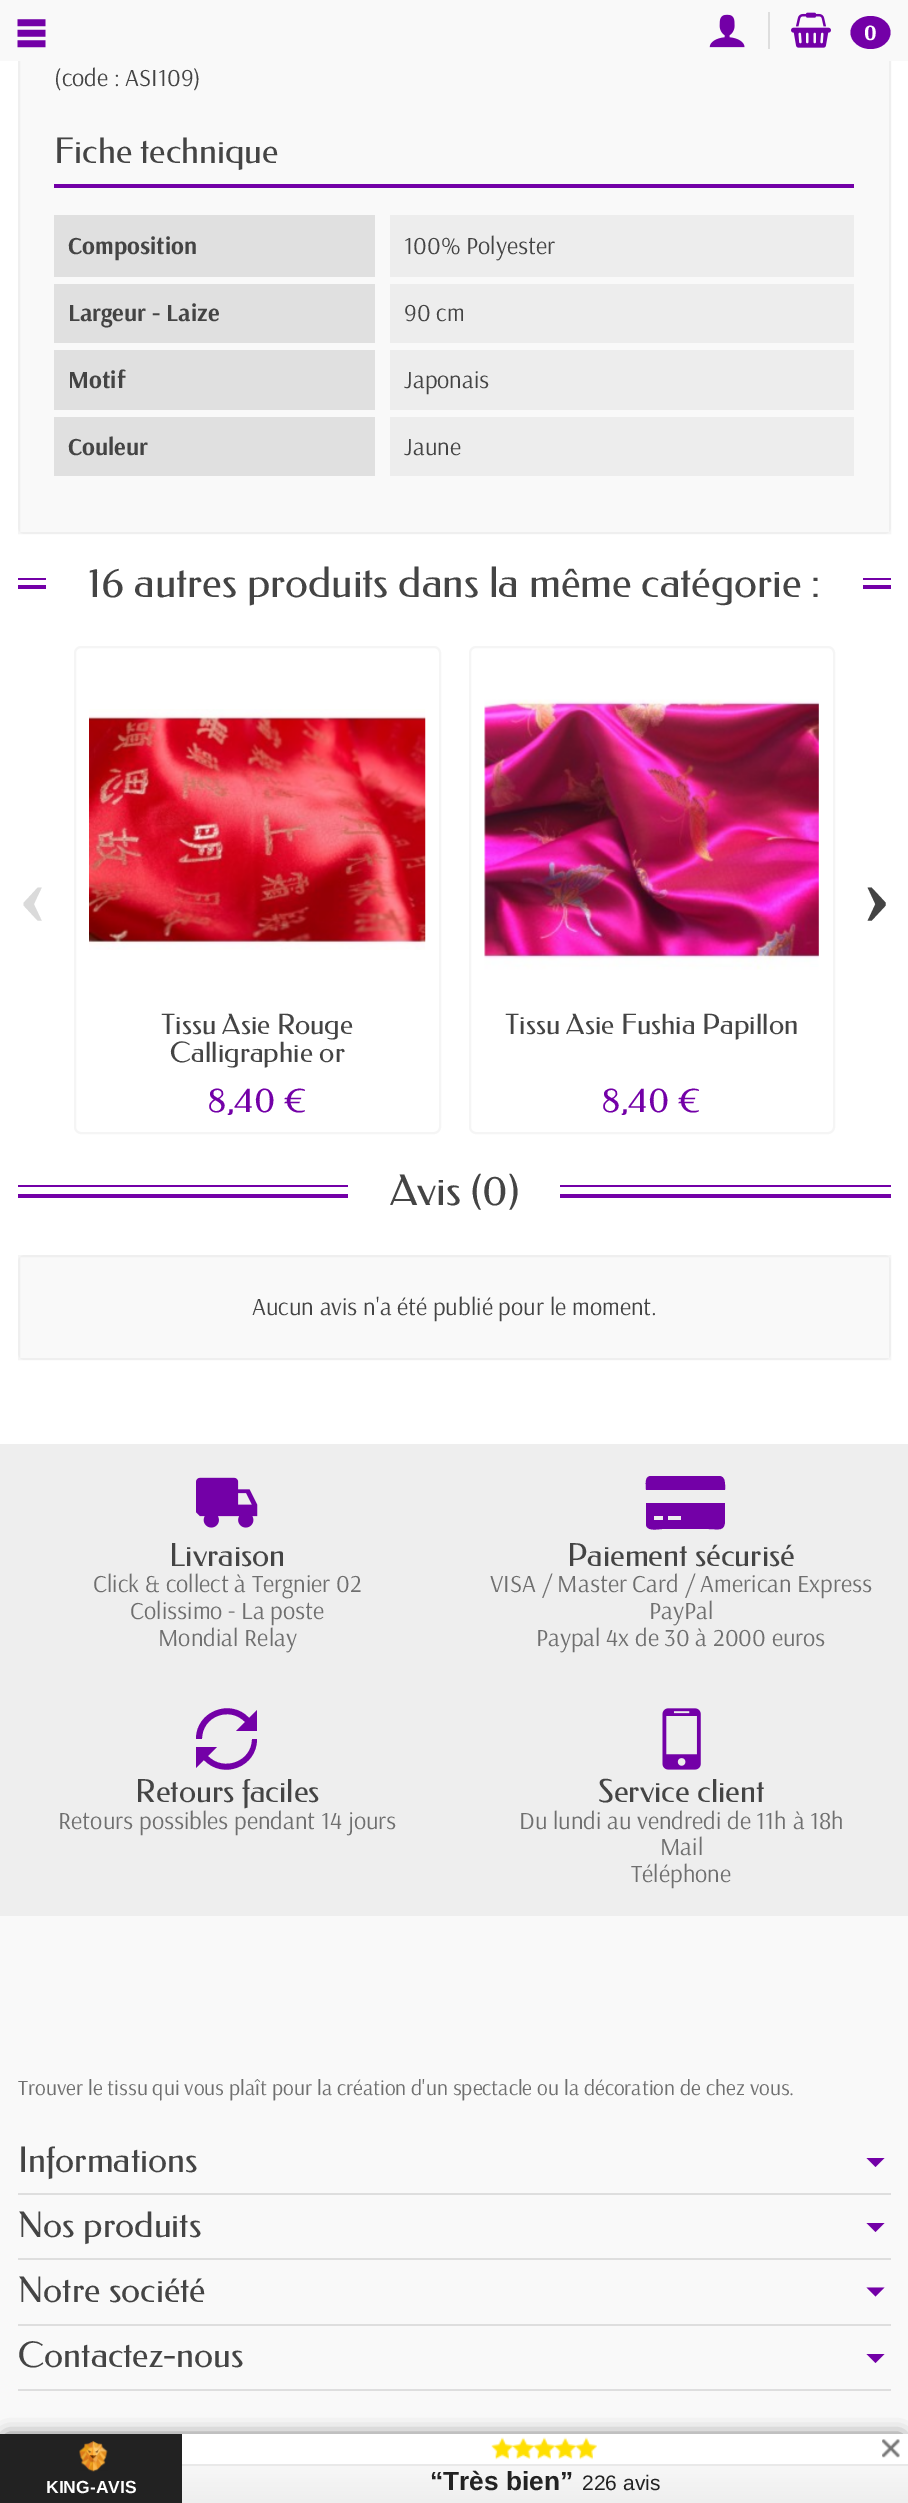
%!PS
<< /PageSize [908 2503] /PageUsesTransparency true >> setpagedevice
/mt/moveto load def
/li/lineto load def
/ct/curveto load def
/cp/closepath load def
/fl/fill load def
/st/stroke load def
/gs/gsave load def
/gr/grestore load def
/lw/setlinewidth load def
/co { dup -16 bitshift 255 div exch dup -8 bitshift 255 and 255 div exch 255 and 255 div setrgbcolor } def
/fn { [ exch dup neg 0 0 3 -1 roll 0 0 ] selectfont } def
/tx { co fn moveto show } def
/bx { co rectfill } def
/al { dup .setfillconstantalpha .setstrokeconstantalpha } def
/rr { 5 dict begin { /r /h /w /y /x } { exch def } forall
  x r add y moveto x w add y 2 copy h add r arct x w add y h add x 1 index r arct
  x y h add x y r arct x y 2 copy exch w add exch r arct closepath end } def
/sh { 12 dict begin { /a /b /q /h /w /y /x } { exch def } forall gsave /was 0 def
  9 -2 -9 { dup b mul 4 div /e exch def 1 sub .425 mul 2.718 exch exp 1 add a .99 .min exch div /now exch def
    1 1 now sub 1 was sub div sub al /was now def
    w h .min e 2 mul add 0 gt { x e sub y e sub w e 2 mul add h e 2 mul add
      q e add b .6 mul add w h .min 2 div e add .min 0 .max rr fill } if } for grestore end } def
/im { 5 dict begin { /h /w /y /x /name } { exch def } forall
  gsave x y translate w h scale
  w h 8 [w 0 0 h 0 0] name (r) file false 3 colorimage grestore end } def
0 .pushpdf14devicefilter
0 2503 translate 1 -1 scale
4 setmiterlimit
0 0 908 2503 16#FFFFFF bx
16#F9F9F9 co
18 -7 873 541 7 rr fl
0.04 al
16#000000 co
2 lw
19 -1 871 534 rectstroke
1 al
0 0 908 61 16#F9F9F9 bx
(media/1.raw) 17 19 29 29 im
(media/2.raw) 709 14 36 34 im
768 12 2 37 16#DEDEDE bx
(media/3.raw) 791 12 40 36 im
16#7300A7 co
870.5 16 mt 881.5 16 890.5 23.5 890.5 32.5 ct 890.5 41.5 881.5 49 870.5 49 ct 859.5 49 850.5 41.5 850.5 32.5 ct 850.5 23.5 859.5 16 870.5 16 ct cp fl
54 184 800 4 16#7300A7 bx
54 215 321 62 16#E0E0E0 bx
390 215 464 62 16#EDEDED bx
54 284 321 59 16#E0E0E0 bx
390 284 464 59 16#EDEDED bx
54 350 321 60 16#E0E0E0 bx
390 350 464 60 16#EDEDED bx
54 417 321 59 16#E0E0E0 bx
390 417 464 59 16#EDEDED bx
18 578 28 2 16#7300A7 bx
18 585 28 4 16#7300A7 bx
863 578 28 2 16#7300A7 bx
863 585 28 4 16#7300A7 bx
16#F5F5F5 co
75 647 365 486 6 rr st
(media/4.raw) 89 709 337 241 im
470 647 364 486 6 rr st
(media/5.raw) 484 699 335 271 im
18 1185 330 2 16#7300A7 bx
18 1194 330 4 16#7300A7 bx
560 1185 331 2 16#7300A7 bx
560 1194 331 4 16#7300A7 bx
16#F9F9F9 co
18 1255 873 105 7 rr fl
0.04 al
16#000000 co
19 1256 871 103 rectstroke
1 al
0 1444 908 472 16#EEEEEE bx
(media/6.raw) 196 1477 62 51 im
16#7300A7 co
646 1524 mt 646 1503 li 725 1503 li 725 1520 li 725 1532 719 1529 708 1529 ct 662 1529 li 659 1529 646 1532 646 1524 ct cp 668 1516 mt 668 1520 li 681 1520 li 681 1516 li cp 654 1516 mt 654 1520 li 663 1520 li 663 1516 li cp 719 1476 mt 726 1476 725 1485 725 1490 ct 646 1490 li 646 1485 644 1476 651 1476 ct cp fl
249 1718 mt 231 1698 196 1711 196 1739 ct 202 1739 li 202 1716 230 1706 245 1722 ct 236 1731 li 257 1731 li 257 1710 li cp 252 1739 mt 252 1762 223 1772 208 1756 ct 217 1747 li 196 1747 li 196 1768 li 204 1760 li 223 1780 257 1767 257 1739 ct cp fl
(media/7.raw) 662 1708 39 62 im
0 1916 908 518 16#F9F9F9 bx
18 2193 873 2 16#DEDEDE bx
16#7300A7 co
866.5 2158 mt 884.5 2158 li 875.5 2167 li cp fl
18 2258 873 2 16#DEDEDE bx
16#7300A7 co
866.5 2223 mt 884.5 2223 li 875.5 2232 li cp fl
18 2324 873 2 16#DEDEDE bx
16#7300A7 co
866.5 2287.5 mt 884.5 2287.5 li 875.5 2296.5 li cp fl
18 2389 873 2 16#DEDEDE bx
16#7300A7 co
866.5 2354 mt 884.5 2354 li 875.5 2363 li cp fl
16#000000 co
7 2438 894 56 0 9 .75 sh
0 2434 182 69 16#222222 bx
(media/8.raw) 79 2441 29 31 im
gs 182 2466 mt 908 2466 li 908 2503 li 182 2503 li cp clip newpath
<< /ShadingType 2 /ColorSpace /DeviceRGB /Coords [545 2434 545 2503] /Extend [true true] /Function << /FunctionType 2 /Domain [0 1] /C0 [1 1 1] /C1 [.933 .933 .933] /N 1 >> >> shfill gr
182 2434 726 30 16#FFFFFF bx
182 2464 726 2 16#E9E9E9 bx
(media/9.raw) 491 2437 22 23 im
(media/10.raw) 512 2437 22 22 im
(media/11.raw) 533 2437 22 23 im
(media/12.raw) 554 2437 22 22 im
(media/13.raw) 575 2437 22 23 im
(media/14.raw) 882 2439 18 19 im
(0) 864 40 /Arsenal-Bold 22 16#FFFFFF tx
(\(code : ASI109\)) 54 86 /Arsenal-Regular 24.5 16#444444 tx
(Fiche technique) 54 163 /Federo-Regular 35 16#444444 tx
(Composition) 68 254 /Arsenal-Bold 24.5 16#444444 tx
(100% Polyester) 404 254 /Arsenal-Regular 24.5 16#444444 tx
(Largeur - Laize) 68 321 /Arsenal-Bold 24.5 16#444444 tx
(90 cm) 404 321 /Arsenal-Regular 24.5 16#444444 tx
(Motif) 68 388 /Arsenal-Bold 24.5 16#444444 tx
(Japonais) 404 388 /Arsenal-Regular 24.5 16#444444 tx
(Couleur) 68 455 /Arsenal-Bold 24.5 16#444444 tx
(Jaune) 404 455 /Arsenal-Regular 24.5 16#444444 tx
(16 autres produits dans la même catégorie :) 88 597 /Federo-Regular 42 16#444444 tx
(‹) 18 924 /LiberationSerif-Bold 88 16#DADADA tx
(›) 862 924 /LiberationSerif-Bold 88 16#444444 tx
(Tissu Asie Rouge) 161 1034 /Federo-Regular 28 16#444444 tx
(Calligraphie or) 170 1062 /Federo-Regular 28 16#444444 tx
(8,40 €) 207 1112 /Federo-Regular 35 16#7300A7 tx
(Tissu Asie Fushia Papillon) 505 1034 /Federo-Regular 28 16#444444 tx
(8,40 €) 601 1112 /Federo-Regular 35 16#7300A7 tx
(Avis \(0\)) 390 1205 /Federo-Regular 42 16#444444 tx
(Aucun avis n'a été publié pour le moment.) 252 1315 /Arsenal-Regular 24.5 16#444444 tx
(Livraison) 169 1566 /Federo-Regular 31.5 16#444444 tx
(Click & collect à Tergnier 02) 93 1592 /Arsenal-Regular 24.5 16#6F6F6F tx
(Colissimo - La poste) 130 1619 /Arsenal-Regular 24.5 16#6F6F6F tx
(Mondial Relay) 158 1646 /Arsenal-Regular 24.5 16#6F6F6F tx
(Paiement sécurisé) 567 1566 /Federo-Regular 31.5 16#444444 tx
(VISA / Master Card / American Express) 490 1592 /Arsenal-Regular 24.5 16#6F6F6F tx
(PayPal) 649 1619 /Arsenal-Regular 24.5 16#6F6F6F tx
(Paypal 4x de 30 à 2000 euros) 536 1646 /Arsenal-Regular 24.5 16#6F6F6F tx
(Retours faciles) 135 1802 /Federo-Regular 31.5 16#444444 tx
(Retours possibles pendant 14 jours) 58 1829 /Arsenal-Regular 24.5 16#6F6F6F tx
(Service client) 598 1802 /Federo-Regular 31.5 16#444444 tx
(Du lundi au vendredi de 11h à 18h) 519 1829 /Arsenal-Regular 24.5 16#6F6F6F tx
(Mail) 660 1855 /Arsenal-Regular 24.5 16#6F6F6F tx
(Téléphone) 631 1882 /Arsenal-Regular 24.5 16#6F6F6F tx
(Trouver le tissu qui vous plaît pour la création d'un spectacle ou la décoration de chez vous.) 18 2095 /Arsenal-Regular 21.45 16#6F6F6F tx
(Informations) 18 2172 /Federo-Regular 35 16#444444 tx
(Nos produits) 18 2237 /Federo-Regular 35 16#444444 tx
(Notre société) 18 2302 /Federo-Regular 35 16#444444 tx
(Contactez-nous) 18 2367 /Federo-Regular 35 16#444444 tx
(KING-AVIS) 46 2493 /LiberationSans-Bold 17.5 16#FFFFFF tx
(“Très bien”) 430 2490 /LiberationSans-Bold 26.25 16#222222 tx
(226 avis) 582 2490 /LiberationSans-Regular 21 16#222222 tx
.poppdf14devicefilter showpage
